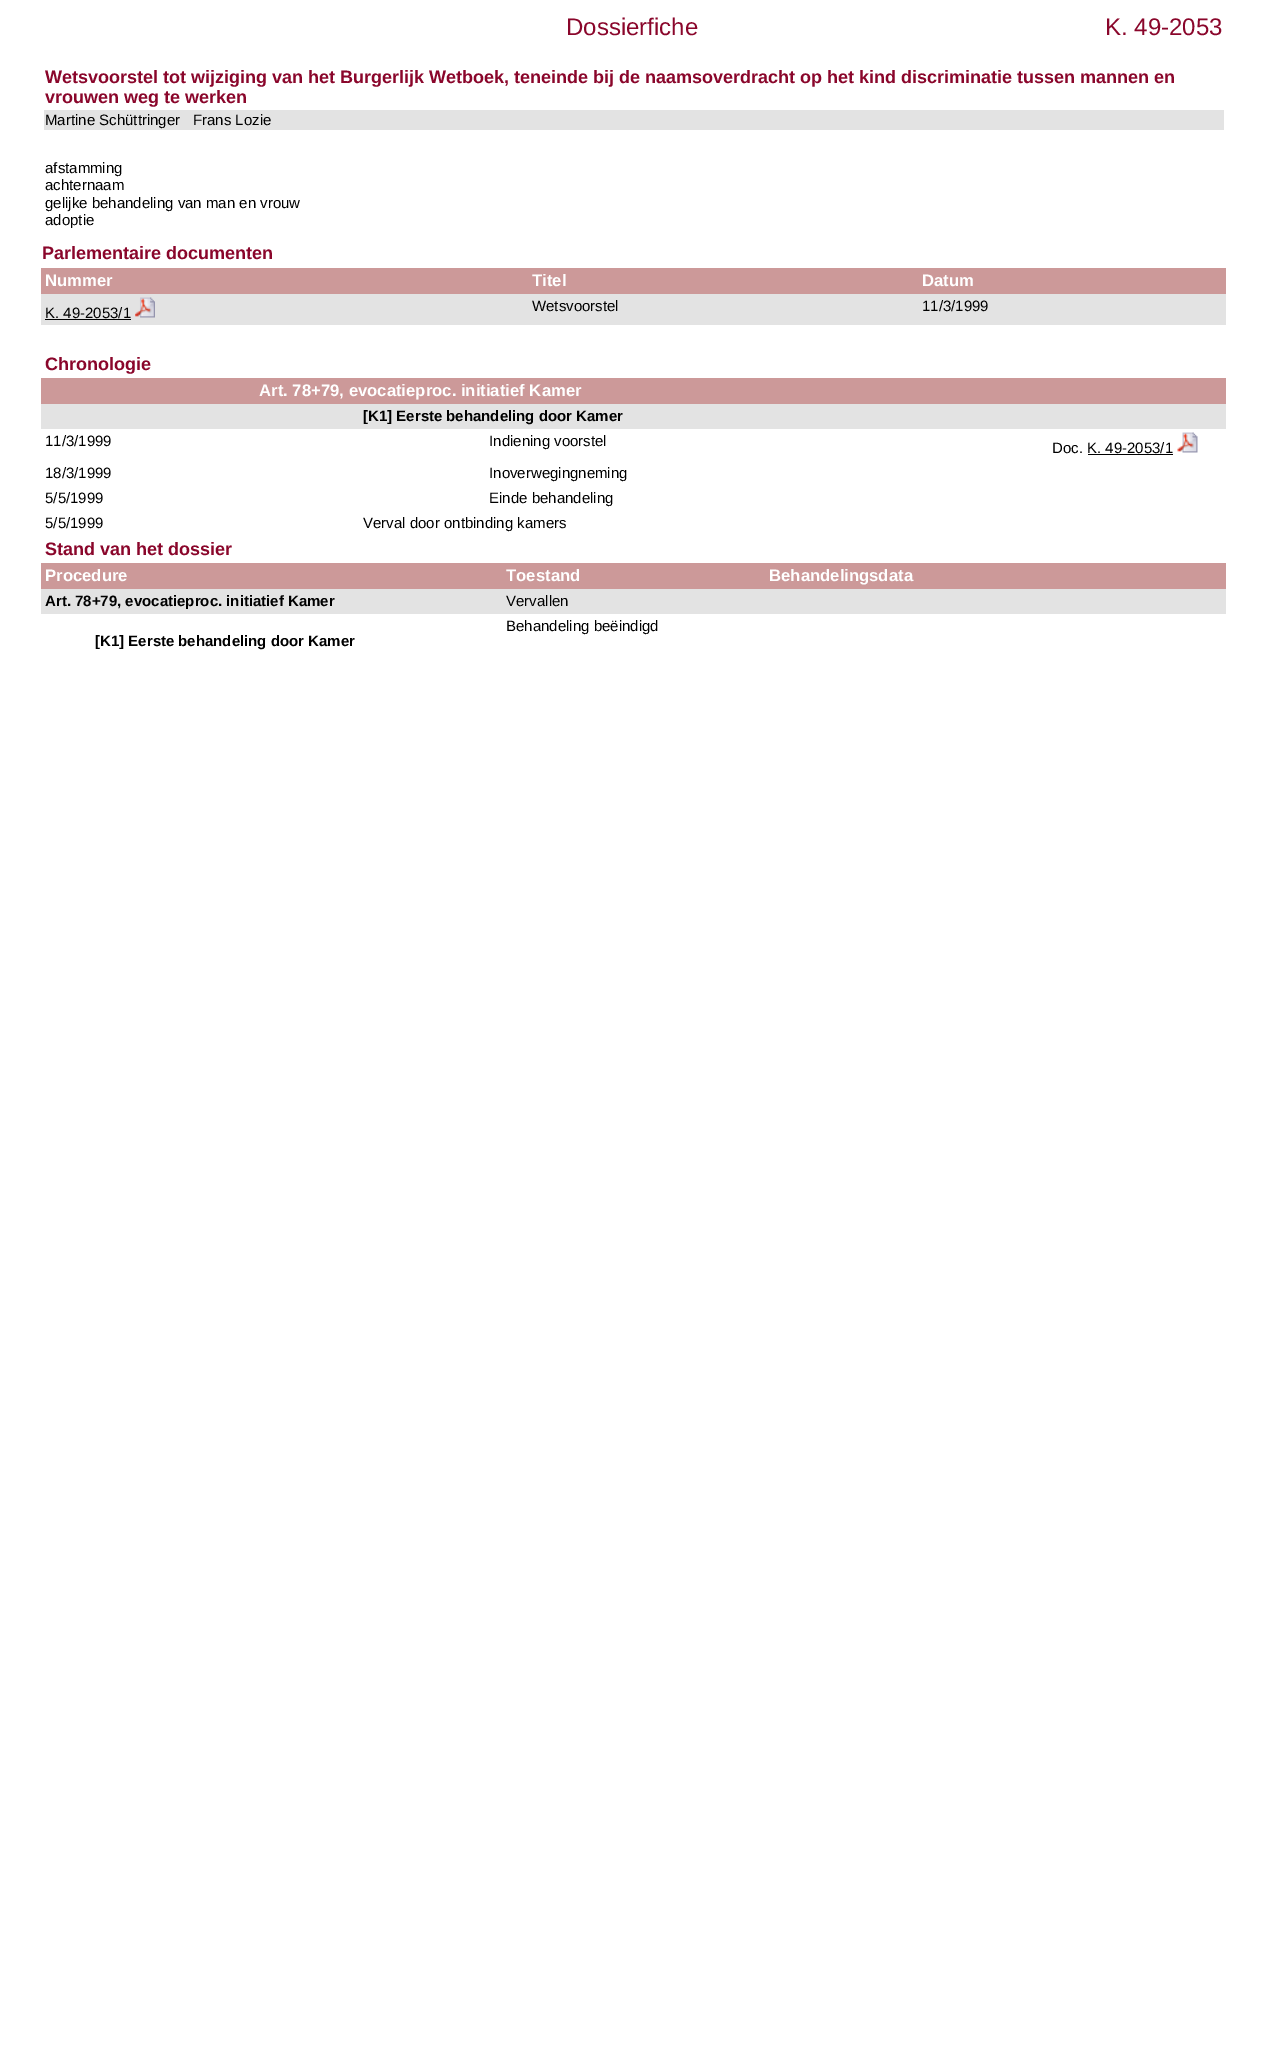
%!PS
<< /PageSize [1267 2068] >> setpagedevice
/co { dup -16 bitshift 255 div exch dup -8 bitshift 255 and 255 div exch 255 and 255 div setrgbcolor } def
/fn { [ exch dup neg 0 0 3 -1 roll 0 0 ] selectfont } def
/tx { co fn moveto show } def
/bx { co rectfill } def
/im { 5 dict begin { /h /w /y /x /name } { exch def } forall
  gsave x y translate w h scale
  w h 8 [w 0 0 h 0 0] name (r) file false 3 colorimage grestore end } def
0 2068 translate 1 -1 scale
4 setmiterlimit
0 0 1267 2068 16#FFFFFF bx
44 110 1180 20 16#E3E3E3 bx
41 268 1185 26 16#CC9999 bx
41 294 1185 31 16#E3E3E3 bx
45 319 86 1 16#000000 bx
(media/1.raw) 135 297 20 21 im
41 378 1185 26 16#CC9999 bx
41 404 1185 25 16#E3E3E3 bx
(media/2.raw) 1177 432 21 21 im
1088 454 85 1 16#000000 bx
41 563 1185 26 16#CC9999 bx
41 589 1185 25 16#E3E3E3 bx
(Dossierfiche) 566 35 /LiberationSans-Regular 24 16#8A062B tx
(K. 49-2053) 1105 35 /LiberationSans-Regular 24 16#8A062B tx
(Wetsvoorstel tot wijziging van het Burgerlijk Wetboek, teneinde bij de naamsoverdracht op het kind discriminatie tussen mannen en) 45 83 /LiberationSans-Bold 18 16#8A062B tx
(vrouwen weg te werken) 45 103 /LiberationSans-Bold 18 16#8A062B tx
(Martine Schüttringer) 45 125 /LiberationSans-Regular 15 16#000000 tx
(Frans Lozie) 193 125 /LiberationSans-Regular 15 16#000000 tx
(afstamming) 45 173 /LiberationSans-Regular 15 16#000000 tx
(achternaam) 45 190 /LiberationSans-Regular 15 16#000000 tx
(gelijke behandeling van man en vrouw) 45 208 /LiberationSans-Regular 15 16#000000 tx
(adoptie) 45 225 /LiberationSans-Regular 15 16#000000 tx
(Parlementaire documenten) 42 259 /LiberationSans-Bold 18 16#8A062B tx
(Nummer) 45 286 /LiberationSans-Bold 16.7 16#FFFFFF tx
(Titel) 532 286 /LiberationSans-Bold 16.7 16#FFFFFF tx
(Datum) 922 286 /LiberationSans-Bold 16.7 16#FFFFFF tx
(K. 49-2053/1) 45 318 /LiberationSans-Regular 15 16#000000 tx
(Wetsvoorstel) 532 311 /LiberationSans-Regular 15 16#000000 tx
(11/3/1999) 922 311 /LiberationSans-Regular 15 16#000000 tx
(Chronologie) 45 370 /LiberationSans-Bold 18 16#8A062B tx
(Art. 78+79, evocatieproc. initiatief Kamer) 259 396 /LiberationSans-Bold 16.7 16#FFFFFF tx
([K1] Eerste behandeling door Kamer) 363 421 /LiberationSans-Bold 15 16#000000 tx
(11/3/1999) 45 446 /LiberationSans-Regular 15 16#000000 tx
(Indiening voorstel) 489 446 /LiberationSans-Regular 15 16#000000 tx
(Doc. K. 49-2053/1) 1052 453 /LiberationSans-Regular 15 16#000000 tx
(18/3/1999) 45 478 /LiberationSans-Regular 15 16#000000 tx
(Inoverwegingneming) 489 478 /LiberationSans-Regular 15 16#000000 tx
(5/5/1999) 45 503 /LiberationSans-Regular 15 16#000000 tx
(Einde behandeling) 489 503 /LiberationSans-Regular 15 16#000000 tx
(5/5/1999) 45 528 /LiberationSans-Regular 15 16#000000 tx
(Verval door ontbinding kamers) 363 528 /LiberationSans-Regular 15 16#000000 tx
(Stand van het dossier) 45 555 /LiberationSans-Bold 18 16#8A062B tx
(Procedure) 45 581 /LiberationSans-Bold 16.7 16#FFFFFF tx
(Toestand) 506 581 /LiberationSans-Bold 16.7 16#FFFFFF tx
(Behandelingsdata) 769 581 /LiberationSans-Bold 16.7 16#FFFFFF tx
(Art. 78+79, evocatieproc. initiatief Kamer) 45 606 /LiberationSans-Bold 15 16#000000 tx
(Vervallen) 506 606 /LiberationSans-Regular 15 16#000000 tx
(Behandeling beëindigd) 506 631 /LiberationSans-Regular 15 16#000000 tx
([K1] Eerste behandeling door Kamer) 95 646 /LiberationSans-Bold 15 16#000000 tx
showpage
